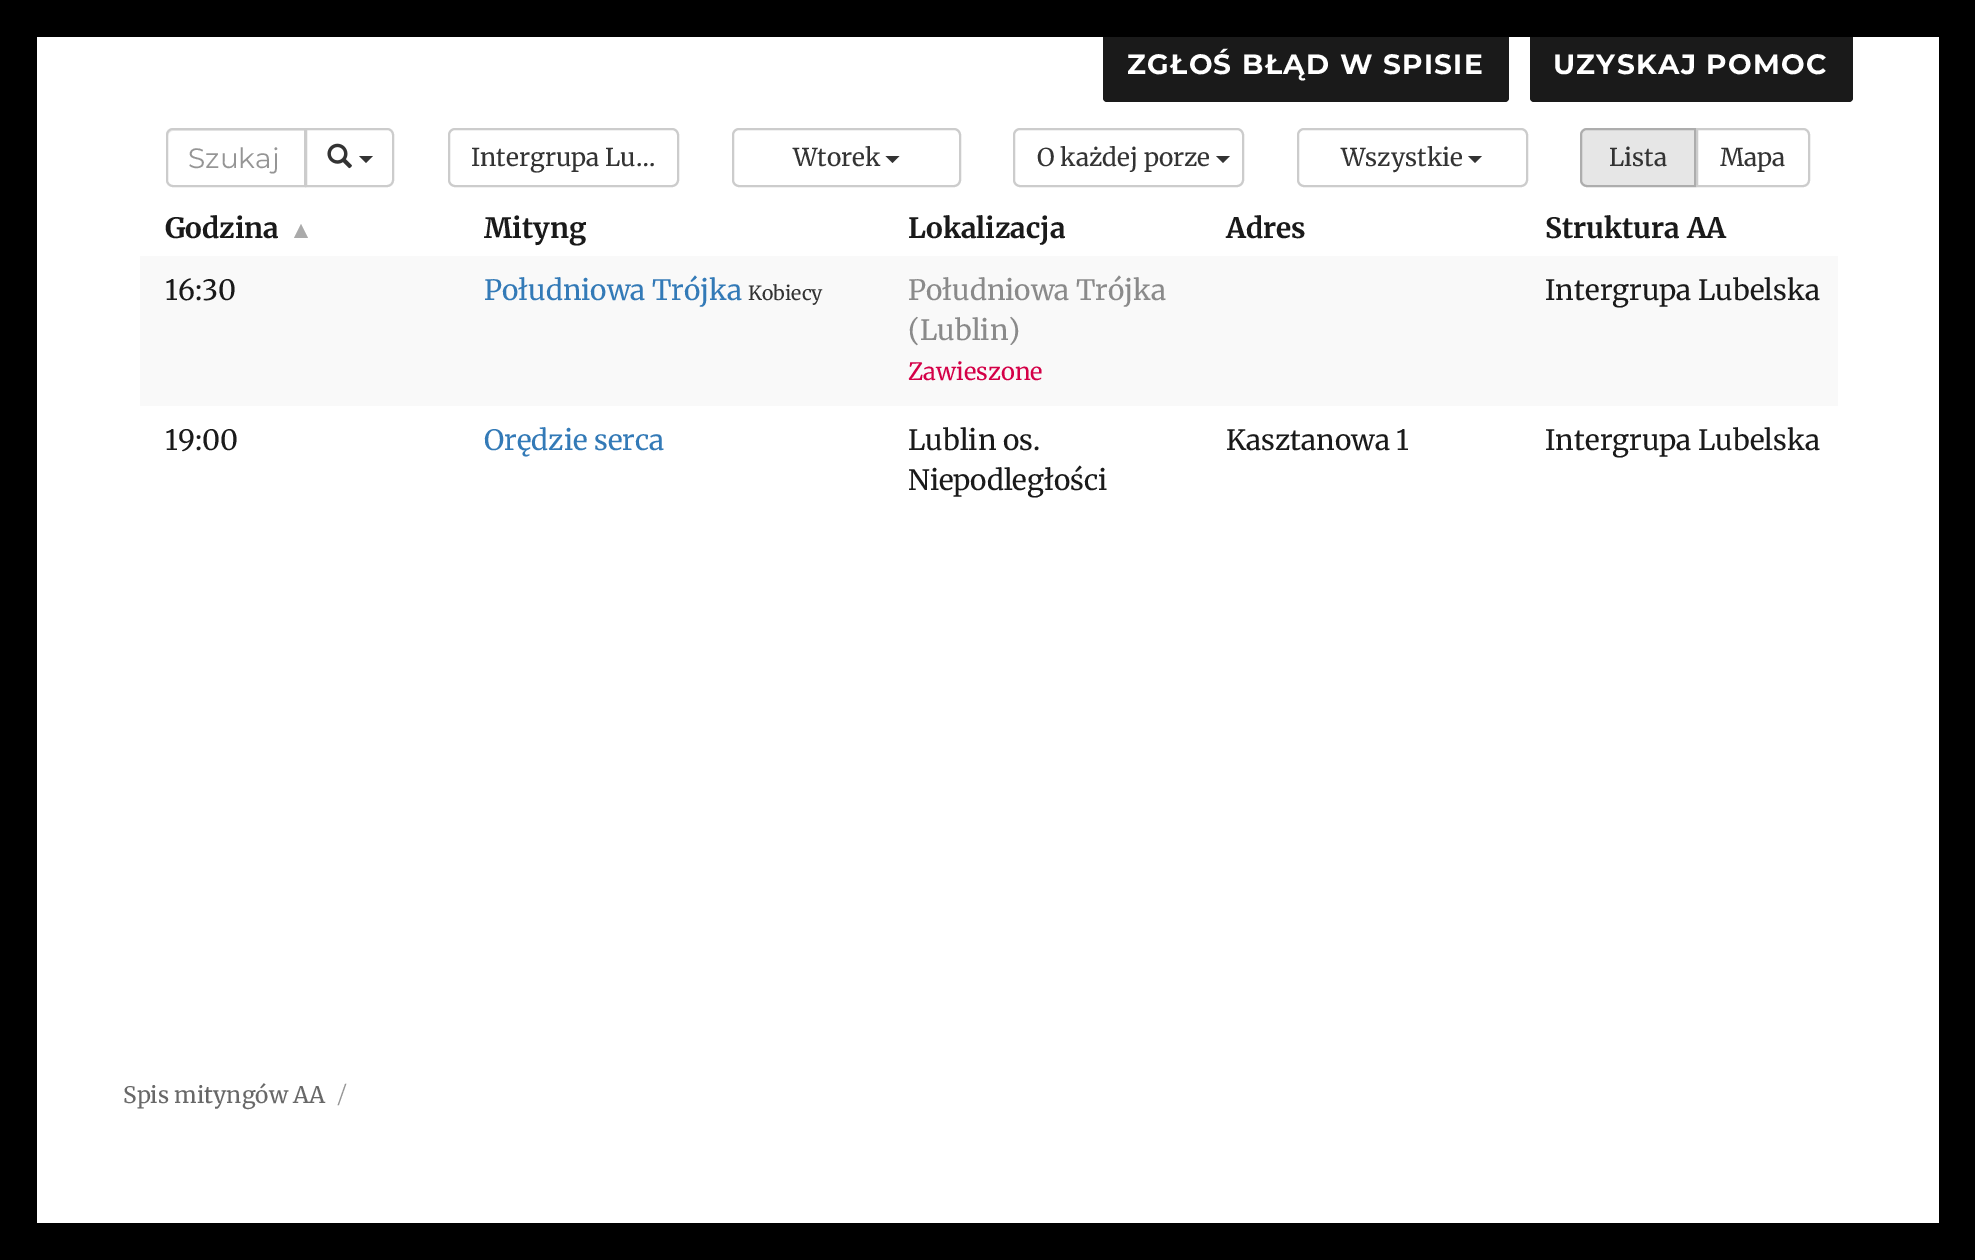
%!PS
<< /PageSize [1975 1260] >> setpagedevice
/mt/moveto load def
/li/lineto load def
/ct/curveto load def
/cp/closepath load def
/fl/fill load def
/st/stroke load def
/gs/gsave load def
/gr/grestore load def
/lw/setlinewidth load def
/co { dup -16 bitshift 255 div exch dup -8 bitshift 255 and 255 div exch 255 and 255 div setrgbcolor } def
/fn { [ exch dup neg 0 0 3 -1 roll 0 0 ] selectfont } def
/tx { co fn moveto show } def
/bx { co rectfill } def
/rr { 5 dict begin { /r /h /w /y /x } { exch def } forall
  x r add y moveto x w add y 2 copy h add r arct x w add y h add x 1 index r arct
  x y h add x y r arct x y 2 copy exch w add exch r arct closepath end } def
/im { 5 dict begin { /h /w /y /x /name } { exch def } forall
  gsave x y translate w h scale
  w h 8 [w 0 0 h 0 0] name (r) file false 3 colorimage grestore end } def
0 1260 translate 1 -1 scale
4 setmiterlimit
0 0 1975 1260 16#000000 bx
37 37 1902 1186 16#FFFFFF bx
16#1A1A1A co
1103 28 406 74 4 rr fl
1530 28 323 74 4 rr fl
1103 28 750 9 16#000000 bx
16#CCCCCC co
2 lw
306 129 mt 387 129 li 390.5 129 393 131.5 393 135 ct 393 180 li 393 183.5 390.5 186 387 186 ct 306 186 li cp st
16#FFFFFF co
173 128 mt 306 128 li 306 187 li 173 187 li 169 187 166 184 166 180 ct 166 135 li 166 131 169 128 173 128 ct cp fl
16#ECECEC co
173 131 mt 304 131 li 304 186 li 305 186 li 305 130 li 173 130 li 170 130 168 132 168 135 ct 168 136 li 168 134 170 131 173 131 ct cp fl
16#CCCCCC co
173 129 mt 305 129 li 305 186 li 173 186 li 169.5 186 167 183.5 167 180 ct 167 135 li 167 131.5 169.5 129 173 129 ct cp st
(media/1.raw) 327 143 25 26 im
16#333333 co
359 156 mt 373 156 li 366 163 li cp fl
16#CCCCCC co
449 129 229 57 6 rr st
733 129 227 57 6 rr st
16#333333 co
885.5 156 mt 899.5 156 li 892.5 163 li cp fl
16#CCCCCC co
1014 129 229 57 6 rr st
16#333333 co
1216 156 mt 1230 156 li 1223 163 li cp fl
16#CCCCCC co
1298 129 229 57 6 rr st
16#333333 co
1468 156 mt 1482 156 li 1475 163 li cp fl
16#E6E6E6 co
1587 129 mt 1695 129 li 1695 186 li 1587 186 li 1583.5 186 1581 183.5 1581 180 ct 1581 135 li 1581 131.5 1583.5 129 1587 129 ct cp gs fl gr
16#ADADAD co
st
16#CCCCCC co
1697 129 mt 1803 129 li 1806.5 129 1809 131.5 1809 135 ct 1809 180 li 1809 183.5 1806.5 186 1803 186 ct 1697 186 li cp st
16#AAAAAA co
308 238 mt 294 238 li 301 224 li cp fl
140 256 1698 150 16#F9F9F9 bx
/Montserrat-Bold 28 fn
16#FFFFFF co
1127 74 mt 1.3 0 (ZGŁOŚ BŁĄD W SPISIE) ashow
1553 74 mt 1.3 0 (UZYSKAJ POMOC) ashow
(Szukaj) 188 168 /Montserrat-Regular 28 16#959595 tx
(Intergrupa Lu…) 471 166 /Merriweather-Regular 24.5 16#333333 tx
(Wtorek) 793 166 /Merriweather-Regular 24.5 16#333333 tx
(O każdej porze) 1037 166 /Merriweather-Regular 24.5 16#333333 tx
(Wszystkie) 1341 166 /Merriweather-Regular 24.5 16#333333 tx
(Lista) 1609 166 /Merriweather-Regular 24.5 16#333333 tx
(Mapa) 1720 166 /Merriweather-Regular 24.5 16#333333 tx
(Godzina) 165 238 /Merriweather-Bold 28 16#1A1A1A tx
(Mityng) 484 238 /Merriweather-Bold 28 16#1A1A1A tx
(Lokalizacja) 908 238 /Merriweather-Bold 28 16#1A1A1A tx
(Adres) 1226 238 /Merriweather-Bold 28 16#1A1A1A tx
(Struktura AA) 1545 238 /Merriweather-Bold 28 16#1A1A1A tx
(16:30) 165 300 /Merriweather-Regular 28 16#1A1A1A tx
(Południowa Trójka) 484 300 /Merriweather-Regular 28 16#337AB7 tx
(Kobiecy) 748 300 /Merriweather-Regular 19.5 16#333333 tx
(Południowa Trójka) 908 300 /Merriweather-Regular 28 16#8A8A8A tx
(\(Lublin\)) 908 340 /Merriweather-Regular 28 16#8A8A8A tx
(Zawieszone) 908 380 /Merriweather-Regular 23.75 16#D40047 tx
(Intergrupa Lubelska) 1545 300 /Merriweather-Regular 28 16#1A1A1A tx
(19:00) 165 450 /Merriweather-Regular 28 16#1A1A1A tx
(Orędzie serca) 484 450 /Merriweather-Regular 28 16#337AB7 tx
(Lublin os.) 908 450 /Merriweather-Regular 28 16#1A1A1A tx
(Niepodległości) 908 490 /Merriweather-Regular 28 16#1A1A1A tx
(Kasztanowa 1) 1226 450 /Merriweather-Regular 28 16#1A1A1A tx
(Intergrupa Lubelska) 1545 450 /Merriweather-Regular 28 16#1A1A1A tx
(Spis mityngów AA) 123 1103 /Merriweather-Regular 22.75 16#686868 tx
(/) 338 1103 /Montserrat-Regular 22.75 16#959595 tx
showpage
